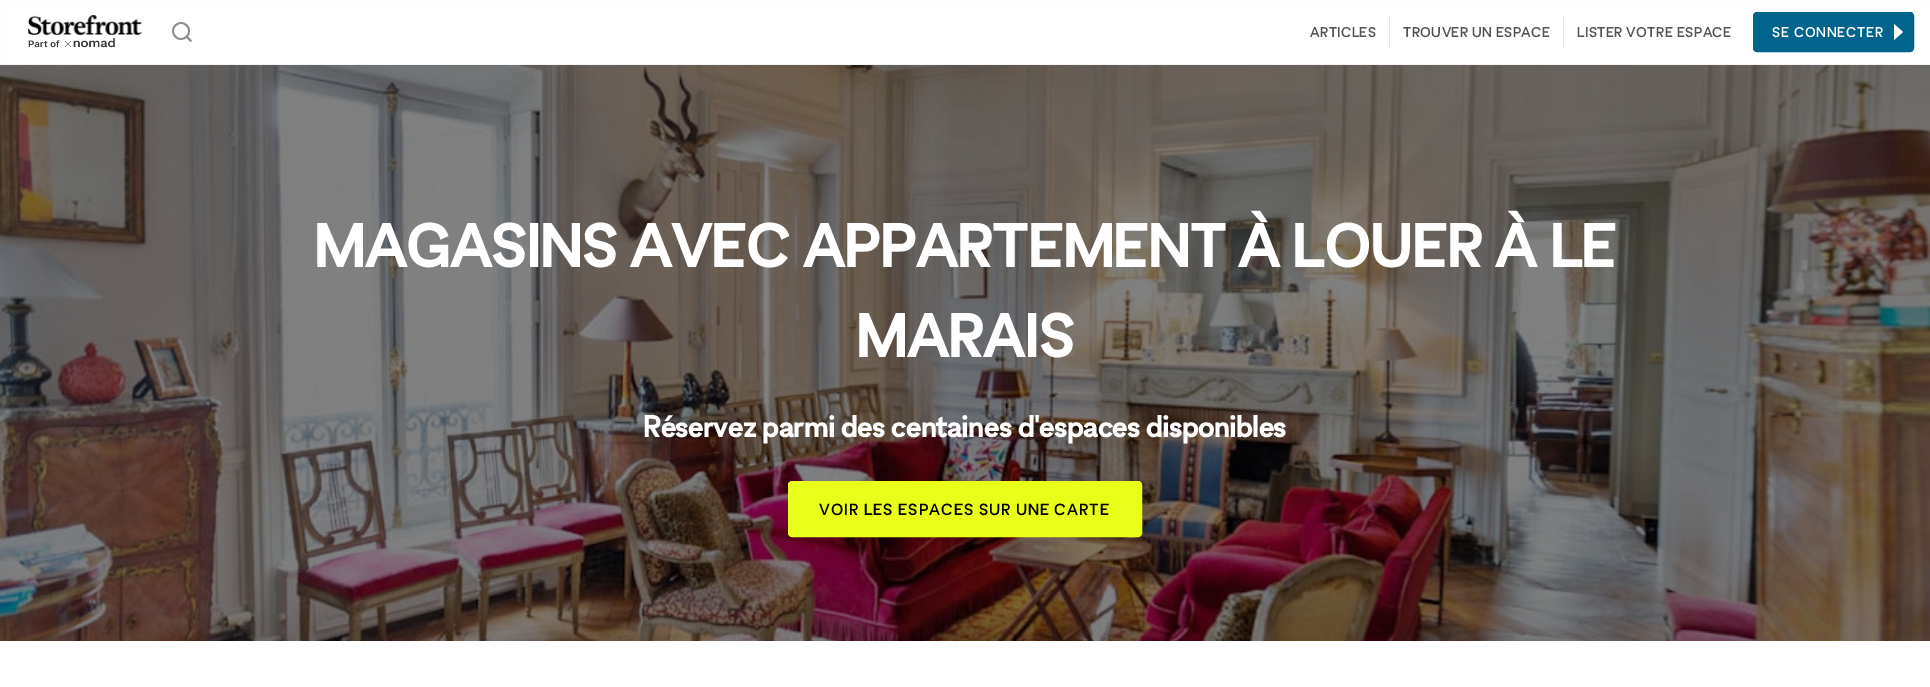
%!PS
<< /PageSize [1930 687] >> setpagedevice
/mt/moveto load def
/li/lineto load def
/cp/closepath load def
/fl/fill load def
/st/stroke load def
/gs/gsave load def
/gr/grestore load def
/lw/setlinewidth load def
/co { dup -16 bitshift 255 div exch dup -8 bitshift 255 and 255 div exch 255 and 255 div setrgbcolor } def
/fn { [ exch dup neg 0 0 3 -1 roll 0 0 ] selectfont } def
/tx { co fn moveto show } def
/bx { co rectfill } def
/ci { newpath 0 360 arc closepath } def
/rr { 5 dict begin { /r /h /w /y /x } { exch def } forall
  x r add y moveto x w add y 2 copy h add r arct x w add y h add x 1 index r arct
  x y h add x y r arct x y 2 copy exch w add exch r arct closepath end } def
/im { 5 dict begin { /h /w /y /x /name } { exch def } forall
  gsave x y translate w h scale
  w h 8 [w 0 0 h 0 0] name (r) file false 3 colorimage grestore end } def
0 687 translate 1 -1 scale
4 setmiterlimit
0 0 1930 687 16#FFFFFF bx
16#F3F4F5 co
-.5 -.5 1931 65 rectstroke
(media/1.raw) 28 15 114 20 im
(media/2.raw) 28 38 87 10 im
16#8A8E90 co
1.8 lw
181 31 8 ci st
1 setlinecap
1 setlinejoin
191 41 mt 186.5 36.5 li st
16#E4E6E7 co
1390 16 mt 1390 48 li 1389 47 li 1389 17 li cp fl
1564 16 mt 1564 48 li 1563 47 li 1563 17 li cp fl
16#00648C co
1753.5 12.5 160 39 3.5 rr gs fl gr
1 lw
0 setlinecap
0 setlinejoin
st
16#FFFFFF co
1894 24 mt 1903 32 li 1894 40 li fl
(media/3.raw) 0 65 1930 576 im
16#E9FF19 co
788.5 481.5 353 55 3.5 rr gs fl gr
st
/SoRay-Regular 14 fn
16#505354 co
1310 37 mt .4 0 (ARTICLES) ashow
1403 37 mt .4 0 (TROUVER UN ESPACE) ashow
1577 37 mt .4 0 (LISTER VOTRE ESPACE) ashow
16#FFFFFF co
1772 37 mt .8 0 (SE CONNECTER) ashow
(MAGASINS AVEC APPARTEMENT À LOUER À LE) 314 267 /SoRay-Bold 60 16#FFFFFF tx
(MARAIS) 856 357 /SoRay-Bold 60 16#FFFFFF tx
(Réservez parmi des centaines d'espaces disponibles) 643 437 /SoRay-Bold 30 16#FFFFFF tx
/SoRay-Regular 16 fn
16#020203 co
819 515 mt .95 0 (VOIR LES ESPACES SUR UNE CARTE) ashow
showpage
